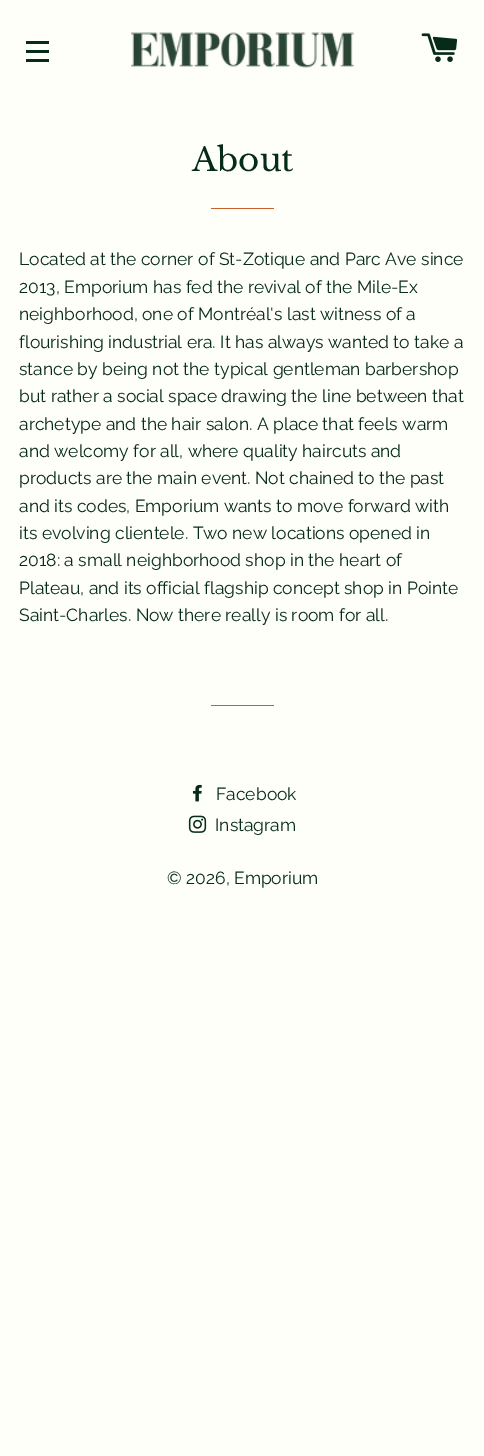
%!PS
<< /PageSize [484 1456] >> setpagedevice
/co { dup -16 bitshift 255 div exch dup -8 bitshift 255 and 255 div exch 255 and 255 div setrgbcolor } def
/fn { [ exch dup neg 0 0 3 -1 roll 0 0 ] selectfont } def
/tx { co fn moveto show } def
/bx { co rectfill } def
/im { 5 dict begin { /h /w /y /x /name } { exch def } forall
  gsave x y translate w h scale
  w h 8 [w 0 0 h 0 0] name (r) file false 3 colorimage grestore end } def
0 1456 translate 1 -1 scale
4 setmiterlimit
0 0 484 1456 16#FFFFF9 bx
26 41 23 3 16#072B1A bx
26 50 23 3 16#072B1A bx
26 59 23 3 16#072B1A bx
(media/1.raw) 131 32 223 36 im
(media/2.raw) 421 33 37 29 im
211 208 63 1 16#CA5F2E bx
211 705 63 1 16#CA5F2E bx
(media/3.raw) 192 784 10 18 im
(media/4.raw) 188 815 19 18 im
(About) 192 171 /LibreBaskerville-Regular 32.5 16#072B1A tx
(Located at the corner of St-Zotique and Parc Ave since) 19 265 /Raleway-Regular 17.5 16#072B1A tx
(2013, Emporium has fed the revival of the Mile-Ex) 19 293 /Raleway-Regular 17.5 16#072B1A tx
(neighborhood, one of Montréal's last witness of a) 19 320 /Raleway-Regular 17.5 16#072B1A tx
(flourishing industrial era. It has always wanted to take a) 19 348 /Raleway-Regular 17.5 16#072B1A tx
(stance by being not the typical gentleman barbershop) 19 375 /Raleway-Regular 17.5 16#072B1A tx
(but rather a social space drawing the line between that) 19 402 /Raleway-Regular 17.5 16#072B1A tx
(archetype and the hair salon. A place that feels warm) 19 430 /Raleway-Regular 17.5 16#072B1A tx
(and welcomy for all, where quality haircuts and) 19 457 /Raleway-Regular 17.5 16#072B1A tx
(products are the main event. Not chained to the past) 19 484 /Raleway-Regular 17.5 16#072B1A tx
(and its codes, Emporium wants to move forward with) 19 512 /Raleway-Regular 17.5 16#072B1A tx
(its evolving clientele. Two new locations opened in) 19 539 /Raleway-Regular 17.5 16#072B1A tx
(2018: a small neighborhood shop in the heart of) 19 566 /Raleway-Regular 17.5 16#072B1A tx
(Plateau, and its official flagship concept shop in Pointe) 19 594 /Raleway-Regular 17.5 16#072B1A tx
(Saint-Charles. Now there really is room for all.) 19 621 /Raleway-Regular 17.5 16#072B1A tx
(Facebook) 216 800 /Raleway-Regular 17.5 16#072B1A tx
(Instagram) 215 831 /Raleway-Regular 17.5 16#072B1A tx
(© 2026, Emporium) 167 884 /Raleway-Regular 17.5 16#072B1A tx
showpage
